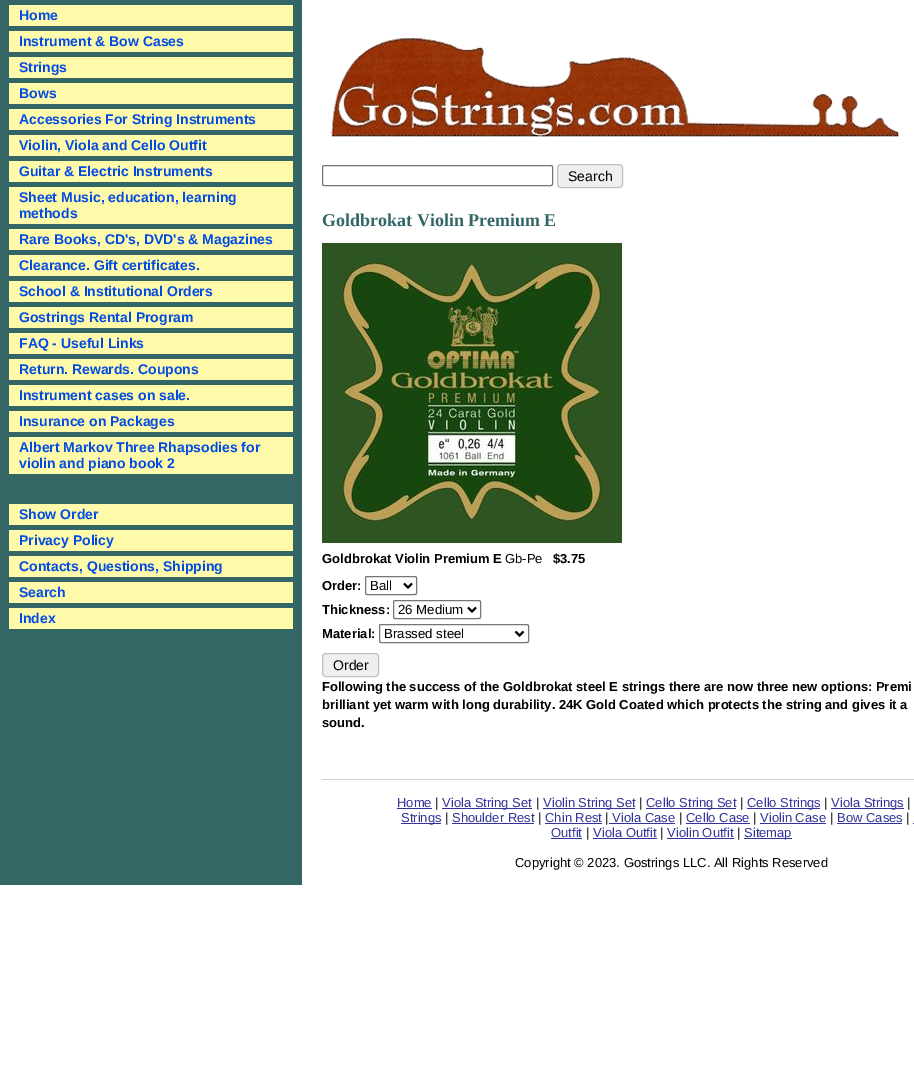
%!PS
<< /PageSize [914 1073] >> setpagedevice
/mt/moveto load def
/li/lineto load def
/fl/fill load def
/st/stroke load def
/gs/gsave load def
/gr/grestore load def
/lw/setlinewidth load def
/co { dup -16 bitshift 255 div exch dup -8 bitshift 255 and 255 div exch 255 and 255 div setrgbcolor } def
/fn { [ exch dup neg 0 0 3 -1 roll 0 0 ] selectfont } def
/tx { co fn moveto show } def
/bx { co rectfill } def
/rr { 5 dict begin { /r /h /w /y /x } { exch def } forall
  x r add y moveto x w add y 2 copy h add r arct x w add y h add x 1 index r arct
  x y h add x y r arct x y 2 copy exch w add exch r arct closepath end } def
/im { 5 dict begin { /h /w /y /x /name } { exch def } forall
  gsave x y translate w h scale
  w h 8 [w 0 0 h 0 0] name (r) file false 3 colorimage grestore end } def
0 1073 translate 1 -1 scale
4 setmiterlimit
0 0 914 1073 16#FFFFFF bx
0 0 302 885 16#356666 bx
9 5 284 21 16#FFFAA9 bx
9 31 284 21 16#FFFAA9 bx
9 57 284 21 16#FFFAA9 bx
9 83 284 21 16#FFFAA9 bx
9 109 284 21 16#FFFAA9 bx
9 135 284 21 16#FFFAA9 bx
9 161 284 21 16#FFFAA9 bx
9 187 284 37 16#FFFAA9 bx
9 229 284 21 16#FFFAA9 bx
9 255 284 21 16#FFFAA9 bx
9 281 284 21 16#FFFAA9 bx
9 307 284 21 16#FFFAA9 bx
9 333 284 21 16#FFFAA9 bx
9 359 284 21 16#FFFAA9 bx
9 385 284 21 16#FFFAA9 bx
9 411 284 21 16#FFFAA9 bx
9 437 284 37 16#FFFAA9 bx
9 504 284 21 16#FFFAA9 bx
9 530 284 21 16#FFFAA9 bx
9 556 284 21 16#FFFAA9 bx
9 582 284 21 16#FFFAA9 bx
9 608 284 21 16#FFFAA9 bx
(media/1.raw) 330 38 569 99 im
16#767676 co
322.5 165.5 230 20 1.5 rr st
16#EFEFEF co
557.5 164.5 65 23 3.5 rr gs fl gr
16#C0C0C0 co
st
(media/2.raw) 322 243 300 300 im
16#767676 co
365.5 576.5 51 18 1.5 rr st
16#000000 co
2 lw
404 583.5 mt 408 587.5 li 412 583.5 li st
16#767676 co
1 lw
393.5 600.5 87 18 1.5 rr st
16#000000 co
2 lw
468 607.5 mt 472 611.5 li 476 607.5 li st
16#767676 co
1 lw
379.5 624.5 149 18 1.5 rr st
16#000000 co
2 lw
515.5 631.5 mt 519.5 635.5 li 523.5 631.5 li st
16#EFEFEF co
322.5 653.5 56 23 3.5 rr gs fl gr
16#C0C0C0 co
1 lw
st
322 779 592 1 16#D0D0D0 bx
397 808 35 1 16#333399 bx
442 808 90 1 16#333399 bx
543 808 92 1 16#333399 bx
646 808 90 1 16#333399 bx
747 808 73 1 16#333399 bx
831 808 73 1 16#333399 bx
401 823 40 1 16#333399 bx
452 823 82 1 16#333399 bx
545 823 57 1 16#333399 bx
609 823 66 1 16#333399 bx
686 823 64 1 16#333399 bx
760 823 66 1 16#333399 bx
837 823 65 1 16#333399 bx
913 823 1 1 16#333399 bx
551 838 31 1 16#333399 bx
593 838 64 1 16#333399 bx
667 838 67 1 16#333399 bx
744 838 48 1 16#333399 bx
(Home) 19 20 /LiberationSans-Bold 14 16#004BE4 tx
(Instrument & Bow Cases) 19 46 /LiberationSans-Bold 14 16#004BE4 tx
(Strings) 19 72 /LiberationSans-Bold 14 16#004BE4 tx
(Bows) 19 98 /LiberationSans-Bold 14 16#004BE4 tx
(Accessories For String Instruments) 19 124 /LiberationSans-Bold 14 16#004BE4 tx
(Violin, Viola and Cello Outfit) 19 150 /LiberationSans-Bold 14 16#004BE4 tx
(Guitar & Electric Instruments) 19 176 /LiberationSans-Bold 14 16#004BE4 tx
(Sheet Music, education, learning) 19 202 /LiberationSans-Bold 14 16#004BE4 tx
(methods) 19 218 /LiberationSans-Bold 14 16#004BE4 tx
(Rare Books, CD's, DVD's & Magazines) 19 244 /LiberationSans-Bold 14 16#004BE4 tx
(Clearance. Gift certificates.) 19 270 /LiberationSans-Bold 14 16#004BE4 tx
(School & Institutional Orders) 19 296 /LiberationSans-Bold 14 16#004BE4 tx
(Gostrings Rental Program) 19 322 /LiberationSans-Bold 14 16#004BE4 tx
(FAQ - Useful Links) 19 348 /LiberationSans-Bold 14 16#004BE4 tx
(Return. Rewards. Coupons) 19 374 /LiberationSans-Bold 14 16#004BE4 tx
(Instrument cases on sale.) 19 400 /LiberationSans-Bold 14 16#004BE4 tx
(Insurance on Packages) 19 426 /LiberationSans-Bold 14 16#004BE4 tx
(Albert Markov Three Rhapsodies for) 19 452 /LiberationSans-Bold 14 16#004BE4 tx
(violin and piano book 2) 19 468 /LiberationSans-Bold 14 16#004BE4 tx
(Show Order) 19 519 /LiberationSans-Bold 14 16#004BE4 tx
(Privacy Policy) 19 545 /LiberationSans-Bold 14 16#004BE4 tx
(Contacts, Questions, Shipping) 19 571 /LiberationSans-Bold 14 16#004BE4 tx
(Search) 19 597 /LiberationSans-Bold 14 16#004BE4 tx
(Index) 19 623 /LiberationSans-Bold 14 16#004BE4 tx
(Search) 568 181 /LiberationSans-Regular 14 16#000000 tx
(Goldbrokat Violin Premium E) 322 226 /LiberationSerif-Bold 18 16#336666 tx
(Goldbrokat Violin Premium E) 322 563 /LiberationSans-Bold 13 16#000000 tx
(Gb-Pe) 505 563 /LiberationSans-Regular 13 16#000000 tx
($3.75) 553 563 /LiberationSans-Bold 13 16#000000 tx
(Order:) 322 590 /LiberationSans-Bold 13 16#000000 tx
(Ball) 370 590 /LiberationSans-Regular 13.25 16#000000 tx
(Thickness:) 322 614 /LiberationSans-Bold 13 16#000000 tx
(26 Medium) 398 614 /LiberationSans-Regular 13.25 16#000000 tx
(Material:) 322 638 /LiberationSans-Bold 13 16#000000 tx
(Brassed steel) 384 638 /LiberationSans-Regular 13.25 16#000000 tx
(Order) 333 670 /LiberationSans-Regular 14 16#000000 tx
(Following the success of the Goldbrokat steel E strings there are now three new options: Premi) 322 691 /LiberationSans-Bold 13 16#000000 tx
(brilliant yet warm with long durability. 24K Gold Coated which protects the string and gives it a) 322 709 /LiberationSans-Bold 13 16#000000 tx
(sound.) 322 727 /LiberationSans-Bold 13 16#000000 tx
(Home) 397 807 /LiberationSans-Regular 13 16#333399 tx
(|) 435 807 /LiberationSans-Regular 13 16#000000 tx
(Viola String Set) 442 807 /LiberationSans-Regular 13 16#333399 tx
(|) 536 807 /LiberationSans-Regular 13 16#000000 tx
(Violin String Set) 543 807 /LiberationSans-Regular 13 16#333399 tx
(|) 639 807 /LiberationSans-Regular 13 16#000000 tx
(Cello String Set) 646 807 /LiberationSans-Regular 13 16#333399 tx
(|) 740 807 /LiberationSans-Regular 13 16#000000 tx
(Cello Strings) 747 807 /LiberationSans-Regular 13 16#333399 tx
(|) 824 807 /LiberationSans-Regular 13 16#000000 tx
(Viola Strings) 831 807 /LiberationSans-Regular 13 16#333399 tx
(|) 907 807 /LiberationSans-Regular 13 16#000000 tx
(Strings) 401 822 /LiberationSans-Regular 13 16#333399 tx
(|) 445 822 /LiberationSans-Regular 13 16#000000 tx
(Shoulder Rest) 452 822 /LiberationSans-Regular 13 16#333399 tx
(|) 538 822 /LiberationSans-Regular 13 16#000000 tx
(Chin Rest) 545 822 /LiberationSans-Regular 13 16#333399 tx
(|) 605 822 /LiberationSans-Regular 13 16#000000 tx
(Viola Case) 612 822 /LiberationSans-Regular 13 16#333399 tx
(|) 679 822 /LiberationSans-Regular 13 16#000000 tx
(Cello Case) 686 822 /LiberationSans-Regular 13 16#333399 tx
(|) 753 822 /LiberationSans-Regular 13 16#000000 tx
(Violin Case) 760 822 /LiberationSans-Regular 13 16#333399 tx
(|) 830 822 /LiberationSans-Regular 13 16#000000 tx
(Bow Cases) 837 822 /LiberationSans-Regular 13 16#333399 tx
(|) 906 822 /LiberationSans-Regular 13 16#000000 tx
(Outfit) 551 837 /LiberationSans-Regular 13 16#333399 tx
(|) 586 837 /LiberationSans-Regular 13 16#000000 tx
(Viola Outfit) 593 837 /LiberationSans-Regular 13 16#333399 tx
(|) 660 837 /LiberationSans-Regular 13 16#000000 tx
(Violin Outfit) 667 837 /LiberationSans-Regular 13 16#333399 tx
(|) 737 837 /LiberationSans-Regular 13 16#000000 tx
(Sitemap) 744 837 /LiberationSans-Regular 13 16#333399 tx
(Copyright © 2023. Gostrings LLC. All Rights Reserved) 515 867 /LiberationSans-Regular 13 16#000000 tx
showpage
